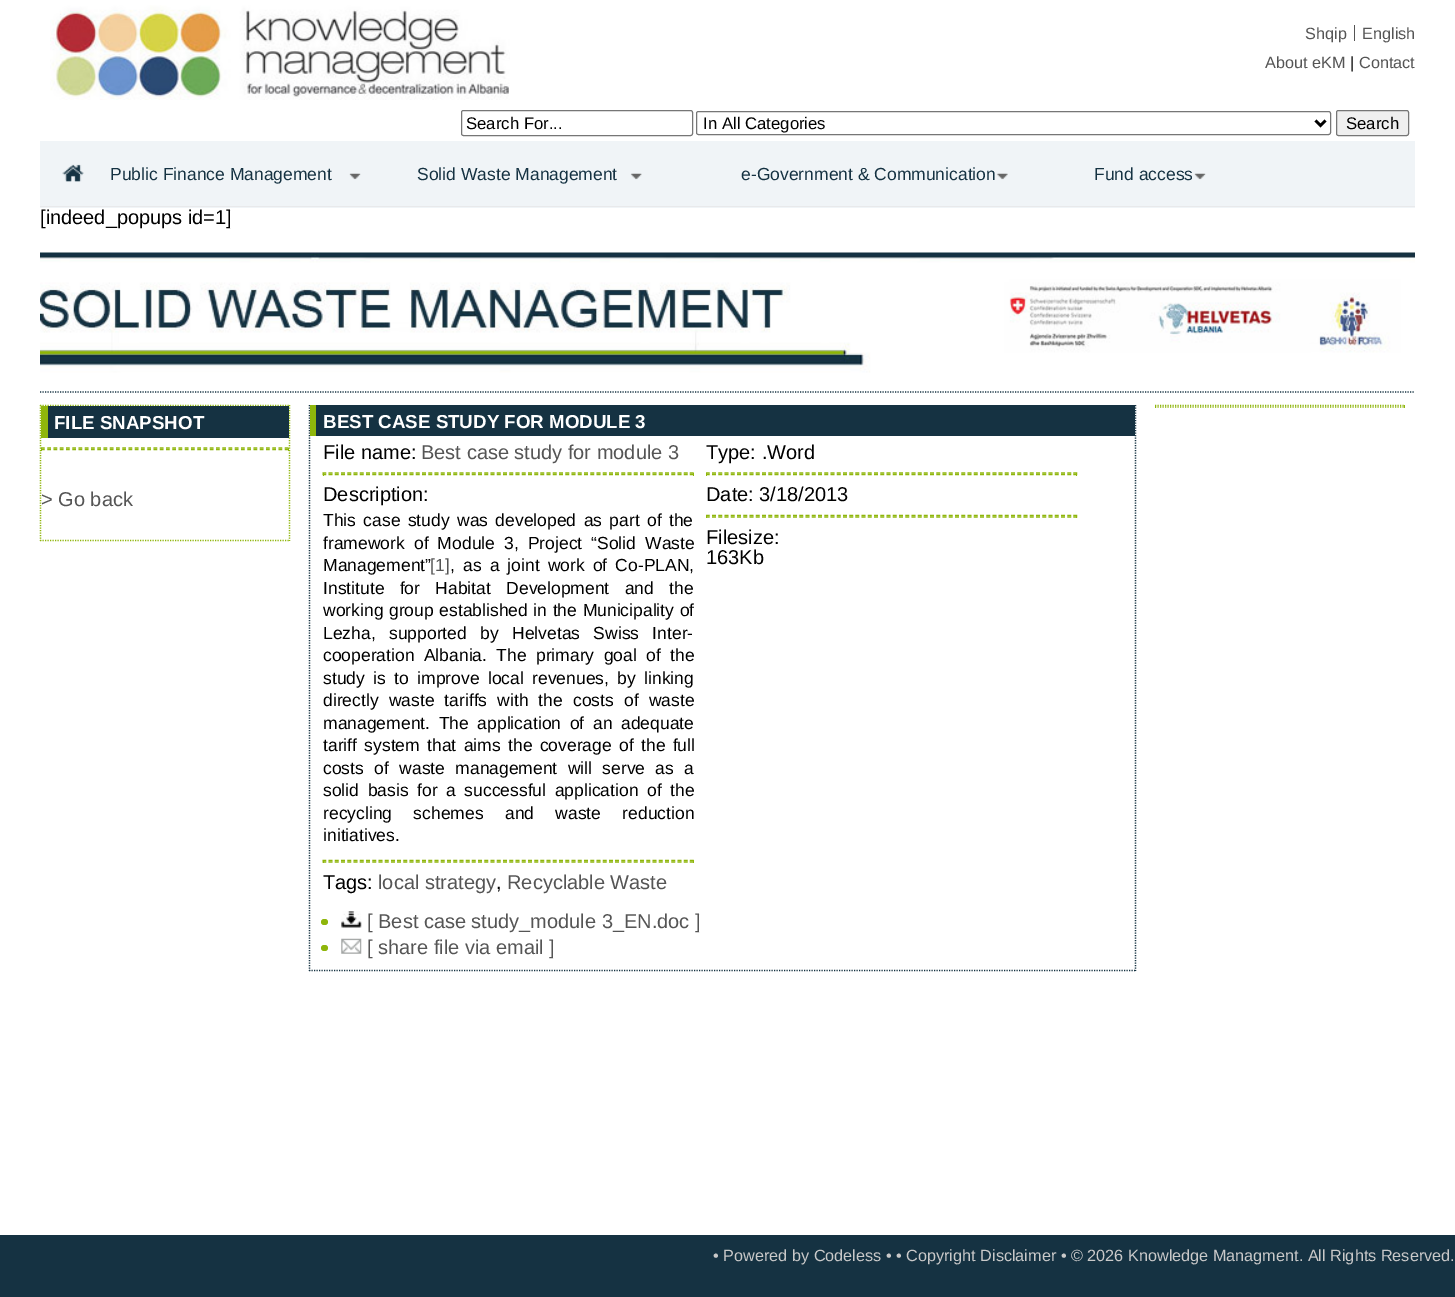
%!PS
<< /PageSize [1455 1297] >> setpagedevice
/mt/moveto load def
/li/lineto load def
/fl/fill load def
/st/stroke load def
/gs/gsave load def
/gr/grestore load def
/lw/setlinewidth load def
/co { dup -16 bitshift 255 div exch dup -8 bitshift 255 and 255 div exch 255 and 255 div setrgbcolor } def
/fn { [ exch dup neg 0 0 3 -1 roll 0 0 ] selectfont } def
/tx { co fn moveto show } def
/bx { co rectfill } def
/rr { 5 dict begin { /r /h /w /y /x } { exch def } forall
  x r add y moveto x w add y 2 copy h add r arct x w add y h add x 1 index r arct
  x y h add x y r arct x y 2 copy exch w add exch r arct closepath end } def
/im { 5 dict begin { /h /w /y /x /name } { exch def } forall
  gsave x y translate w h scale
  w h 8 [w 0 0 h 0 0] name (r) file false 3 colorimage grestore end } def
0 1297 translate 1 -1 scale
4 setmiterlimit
0 0 1455 1297 16#FFFFFF bx
(media/1.raw) 50 5 460 95 im
1354 25 1 16 16#555555 bx
16#767676 co
461.5 110.5 231 25 2 rr st
696.5 111.5 634 23 2 rr st
16#000000 co
2.5 lw
1315.5 120.5 mt 1320.5 125.5 li 1325.5 120.5 li st
16#EFEFEF co
1336.5 110.5 72 25 2 rr gs fl gr
16#767676 co
1 lw
st
40 141 1375 67 16#F0F4F7 bx
40 206 1375 1 16#E8E9EB bx
(media/2.raw) 62 164 22 18 im
(media/3.raw) 349 173 12 7 im
(media/4.raw) 630 173 12 7 im
(media/5.raw) 996 173 12 7 im
(media/6.raw) 1194 173 12 7 im
(media/7.raw) 40 252 1375 121 im
16#153242 co
1.2 lw
[1.25 1.25] 0 setdash
40 392 mt 1415 392 li st
16#8FB60B co
1155 405.5 mt 1405 405.5 li st
1404 405 1 3 16#8FB60B bx
1155 407 mt 1405 407 li st
1155 405 1 3 16#8FB60B bx
40 405.5 mt 290 405.5 li st
289.5 405 mt 289.5 541 li st
40 540.5 mt 290 540.5 li st
40.5 405 mt 40.5 541 li st
48 406 241 32 16#153242 bx
41 406 7 32 16#8FB60B bx
[3.75 2.5] 0 setdash
41 448 mt 289 448 li st
288 448 1 3 16#8FB60B bx
41 449.5 mt 289 449.5 li st
41 448 1 3 16#8FB60B bx
16#153242 co
[1.25 1.25] 0 setdash
1135.5 405 mt 1135.5 971 li st
309 970.5 mt 1136 970.5 li st
309.5 405 mt 309.5 971 li st
316 405 819 31 16#153242 bx
310 405 6 31 16#8FB60B bx
[3.75 2.48] 0 setdash
322.5 473 mt 694 473 li st
693 473 1 3 16#8FB60B bx
322.5 474.5 mt 694 474.5 li st
323 473 1 3 16#8FB60B bx
322.5 860.5 mt 694 860.5 li st
693 860 1 3 16#8FB60B bx
322.5 862 mt 694 862 li st
323 860 1 3 16#8FB60B bx
706 473 mt 1077.5 473 li st
1076 473 1 3 16#8FB60B bx
706 474.5 mt 1077.5 474.5 li st
706 473 1 3 16#8FB60B bx
706 515.5 mt 1077.5 515.5 li st
1076 515 1 3 16#8FB60B bx
706 517 mt 1077.5 517 li st
706 515 1 3 16#8FB60B bx
321 919 7 6 3 rr fl
(media/8.raw) 341 911 21 17 im
321 945 7 6 3 rr fl
(media/9.raw) 341 938 21 16 im
0 1235 1455 62 16#153242 bx
(Shqip) 1305 39 /LiberationSans-Regular 16.25 16#555555 tx
(English) 1362 39 /LiberationSans-Regular 16.25 16#555555 tx
(About eKM) 1265 68 /LiberationSans-Regular 16.25 16#555555 tx
(|) 1350 68 /LiberationSans-Regular 16.25 16#000000 tx
(Contact) 1359 68 /LiberationSans-Regular 16.25 16#555555 tx
(Search For...) 466 129 /LiberationSans-Regular 16.75 16#000000 tx
(In All Categories) 703 129 /LiberationSans-Regular 16.75 16#000000 tx
(Search) 1346 129 /LiberationSans-Regular 16.75 16#000000 tx
(Public Finance Management) 110 180 /LiberationSans-Regular 17.5 16#153242 tx
(Solid Waste Management) 417 180 /LiberationSans-Regular 17.5 16#153242 tx
(e-Government & Communication) 741 180 /LiberationSans-Regular 17.5 16#153242 tx
(Fund access) 1094 180 /LiberationSans-Regular 17.5 16#153242 tx
([indeed_popups id=1]) 40 224 /LiberationSans-Regular 20 16#000000 tx
(FILE SNAPSHOT) 54 429 /LiberationSans-Bold 18.75 16#FFFFFF tx
(> Go back) 41 506 /LiberationSans-Regular 20 16#555555 tx
(BEST CASE STUDY FOR MODULE 3) 323 428 /LiberationSans-Bold 18.75 16#FFFFFF tx
(File name:) 323 459 /LiberationSans-Regular 20 16#000000 tx
(Best case study for module 3) 421 459 /LiberationSans-Regular 20 16#555555 tx
(Description:) 323 501 /LiberationSans-Regular 20 16#000000 tx
/LiberationSans-Regular 17.5 fn
323 526 mt 2.5 0 32 (This case study was developed as part of the) widthshow
323 549 mt 4.25 0 32 (framework of Module 3, Project “Solid Waste) widthshow
(Management”) 323 571 /LiberationSans-Regular 17.5 16#000000 tx
([1]) 430 571 /LiberationSans-Regular 17.5 16#555555 tx
16#000000 co
450 571 mt 3.25 0 32 (, as a joint work of Co-PLAN,) widthshow
323 594 mt 10.5 0 32 (Institute for Habitat Development and the) widthshow
323 616 mt .75 0 32 (working group established in the Municipality of) widthshow
323 639 mt 8.5 0 32 (Lezha, supported by Helvetas Swiss Inter-) widthshow
323 661 mt 4.5 0 32 (cooperation Albania. The primary goal of the) widthshow
323 684 mt 3.5 0 32 (study is to improve local revenues, by linking) widthshow
323 706 mt 5.25 0 32 (directly waste tariffs with the costs of waste) widthshow
323 729 mt 3.75 0 32 (management. The application of an adequate) widthshow
323 751 mt 2.5 0 32 (tariff system that aims the coverage of the full) widthshow
323 774 mt 5.5 0 32 (costs of waste management will serve as a) widthshow
323 796 mt 3.75 0 32 (solid basis for a successful application of the) widthshow
323 819 mt 16.5 0 32 (recycling schemes and waste reduction) widthshow
(initiatives.) 323 841 /LiberationSans-Regular 17.5 16#000000 tx
(Tags:) 323 889 /LiberationSans-Regular 20 16#000000 tx
(local strategy) 378 889 /LiberationSans-Regular 20 16#555555 tx
(,) 496 889 /LiberationSans-Regular 20 16#000000 tx
(Recyclable Waste) 507 889 /LiberationSans-Regular 20 16#555555 tx
(Type: .Word) 706 459 /LiberationSans-Regular 20 16#000000 tx
(Date: 3/18/2013) 706 501 /LiberationSans-Regular 20 16#000000 tx
(Filesize:) 706 544 /LiberationSans-Regular 20 16#000000 tx
(163Kb) 706 564 /LiberationSans-Regular 20 16#000000 tx
([ Best case study_module 3_EN.doc ]) 367 928 /LiberationSans-Regular 20 16#555555 tx
([ share file via email ]) 367 954 /LiberationSans-Regular 20 16#555555 tx
(• Powered by Codeless • • Copyright Disclaimer • © 2026 Knowledge Managment. All Rights Reserved.) 713 1261 /LiberationSans-Regular 16.25 16#C9C9C9 tx
showpage
